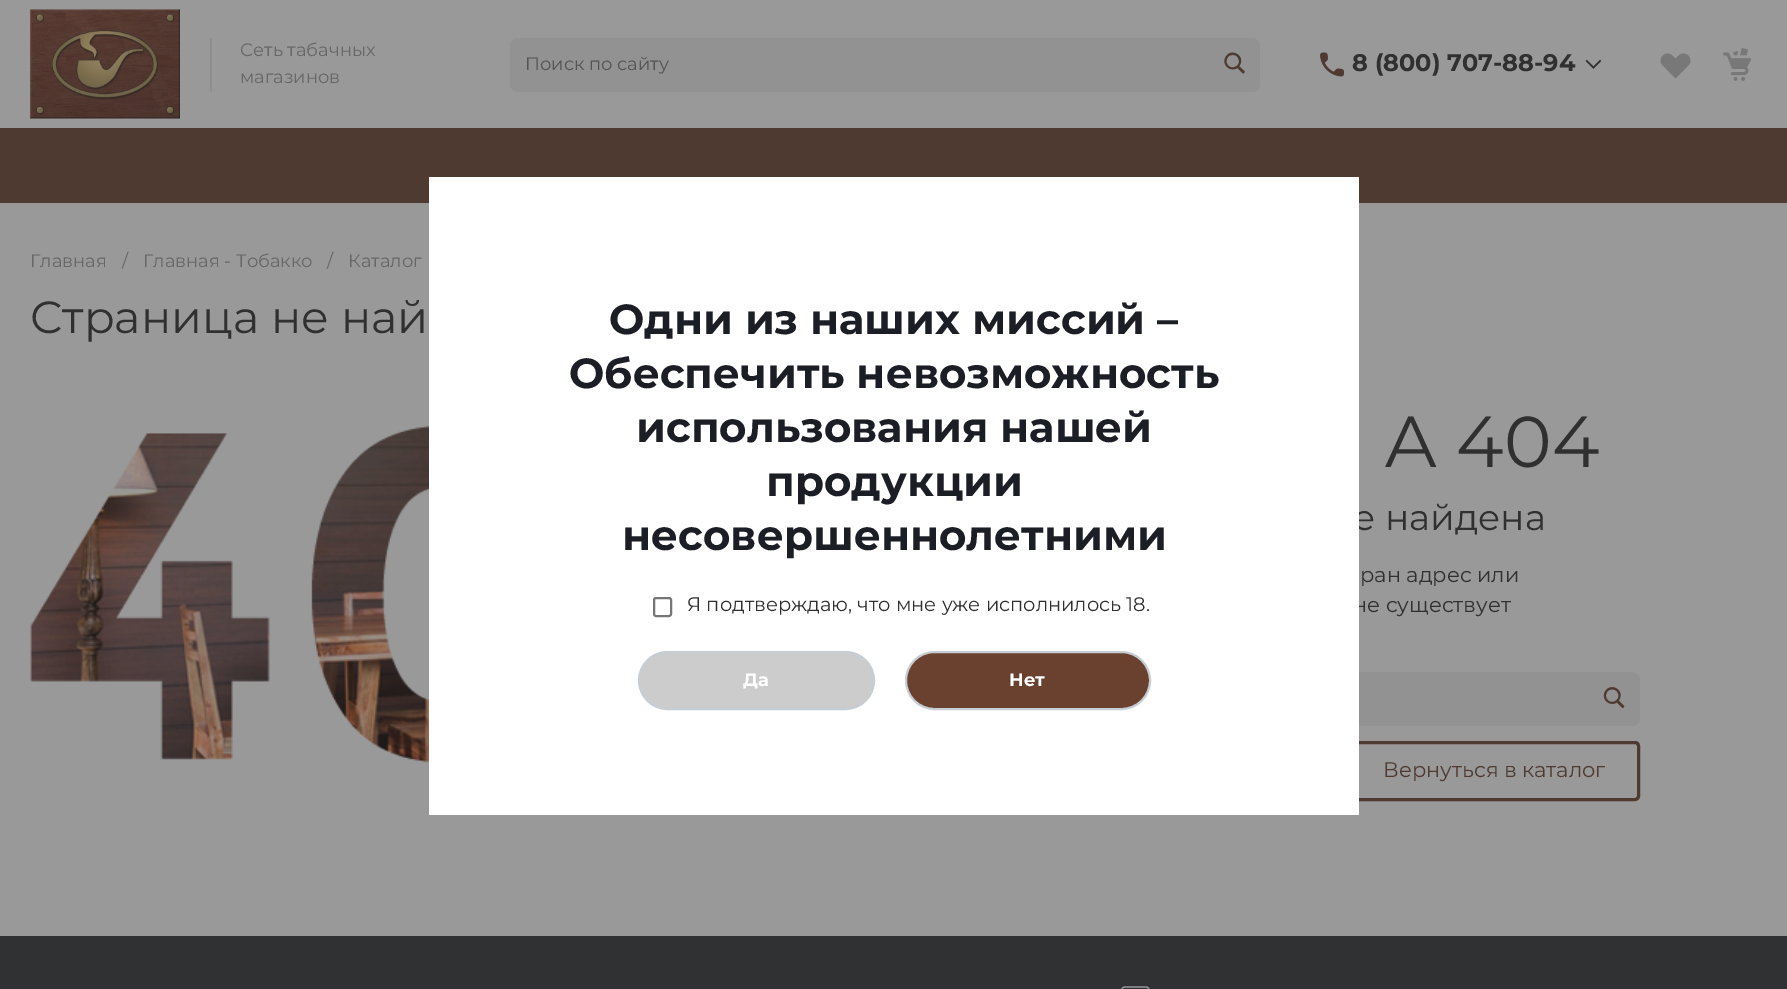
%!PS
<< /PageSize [1787 989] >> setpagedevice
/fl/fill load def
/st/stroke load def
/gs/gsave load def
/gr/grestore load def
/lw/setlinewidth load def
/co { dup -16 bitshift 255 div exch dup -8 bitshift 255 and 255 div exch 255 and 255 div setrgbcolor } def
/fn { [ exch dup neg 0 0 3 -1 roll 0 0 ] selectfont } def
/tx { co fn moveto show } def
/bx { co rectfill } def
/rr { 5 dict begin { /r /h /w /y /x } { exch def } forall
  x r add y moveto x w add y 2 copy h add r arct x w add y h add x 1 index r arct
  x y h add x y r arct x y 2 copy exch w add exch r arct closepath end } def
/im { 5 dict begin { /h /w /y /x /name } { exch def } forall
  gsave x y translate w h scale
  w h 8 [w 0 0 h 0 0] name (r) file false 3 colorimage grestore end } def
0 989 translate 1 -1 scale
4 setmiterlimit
0 0 1787 989 16#999999 bx
(media/1.raw) 30 9 150 110 im
210 38 2 54 16#8E8E8E bx
16#929292 co
510 38 750 54 8 rr fl
(media/2.raw) 1224 52 21 22 im
(media/3.raw) 1320 52 24 25 im
(media/4.raw) 1585 59 17 10 im
(media/5.raw) 1660 53 31 26 im
(media/6.raw) 1723 48 28 33 im
0 128 1787 75 16#4E3A31 bx
(media/7.raw) 30 426 399 337 im
16#929292 co
1043 672 597 54 8 rr fl
(media/8.raw) 1603 687 22 21 im
16#4E3A31 co
3 lw
1351.5 742.5 287 57 3.5 rr st
0 936 1787 53 16#2F3133 bx
(media/9.raw) 1121 986 29 3 im
(Сеть табачных) 240 56 /Montserrat-Regular 18 16#676767 tx
(магазинов) 240 83 /Montserrat-Regular 18 16#676767 tx
(Поиск по сайту) 525 70 /Montserrat-Regular 18 16#545454 tx
(8 \(800\) 707-88-94) 1352 71 /Montserrat-Bold 24 16#303030 tx
(Главная) 30 267 /Montserrat-Regular 18 16#676767 tx
(/) 122 267 /Montserrat-Regular 18 16#676767 tx
(Главная - Тобакко) 143 267 /Montserrat-Regular 18 16#676767 tx
(/) 327 267 /Montserrat-Regular 18 16#676767 tx
(Каталог) 348 267 /Montserrat-Regular 18 16#676767 tx
(Страница не най) 30 333 /Montserrat-Regular 45 16#303030 tx
(А 404) 1384 467 /Montserrat-Regular 72 16#303030 tx
(е найдена) 1353 530 /Montserrat-Regular 36 16#303030 tx
(ран адрес или) 1360 582 /Montserrat-Regular 21 16#303030 tx
(не существует) 1353 612 /Montserrat-Regular 21 16#303030 tx
(Вернуться в каталог) 1383 777 /Montserrat-Regular 21 16#4E3A31 tx
429 177 930 638 16#FFFFFF bx
(Одни из наших миссий –) 609 334 /Montserrat-Bold 42 16#1B1E25 tx
(Обеспечить невозможность) 569 388 /Montserrat-Bold 42 16#1B1E25 tx
(использования нашей) 636 442 /Montserrat-Bold 42 16#1B1E25 tx
(продукции) 766 496 /Montserrat-Bold 42 16#1B1E25 tx
(несовершеннолетними) 622 550 /Montserrat-Bold 42 16#1B1E25 tx
16#767676 co
2 lw
654 598 17 18 2 rr st
(Я подтверждаю, что мне уже исполнилось 18.) 687 611 /Montserrat-Regular 19.5 16#303030 tx
16#CCCCCC co
639 652 235 57 28.5 rr gs fl gr
16#C6CDD3 co
st
(Да) 743 686 /Montserrat-Bold 18 16#FFFFFF tx
16#69412E co
906 652 244 57 28.5 rr gs fl gr
16#C6CDD3 co
st
(Нет) 1009 686 /Montserrat-Bold 18 16#FFFFFF tx
showpage
